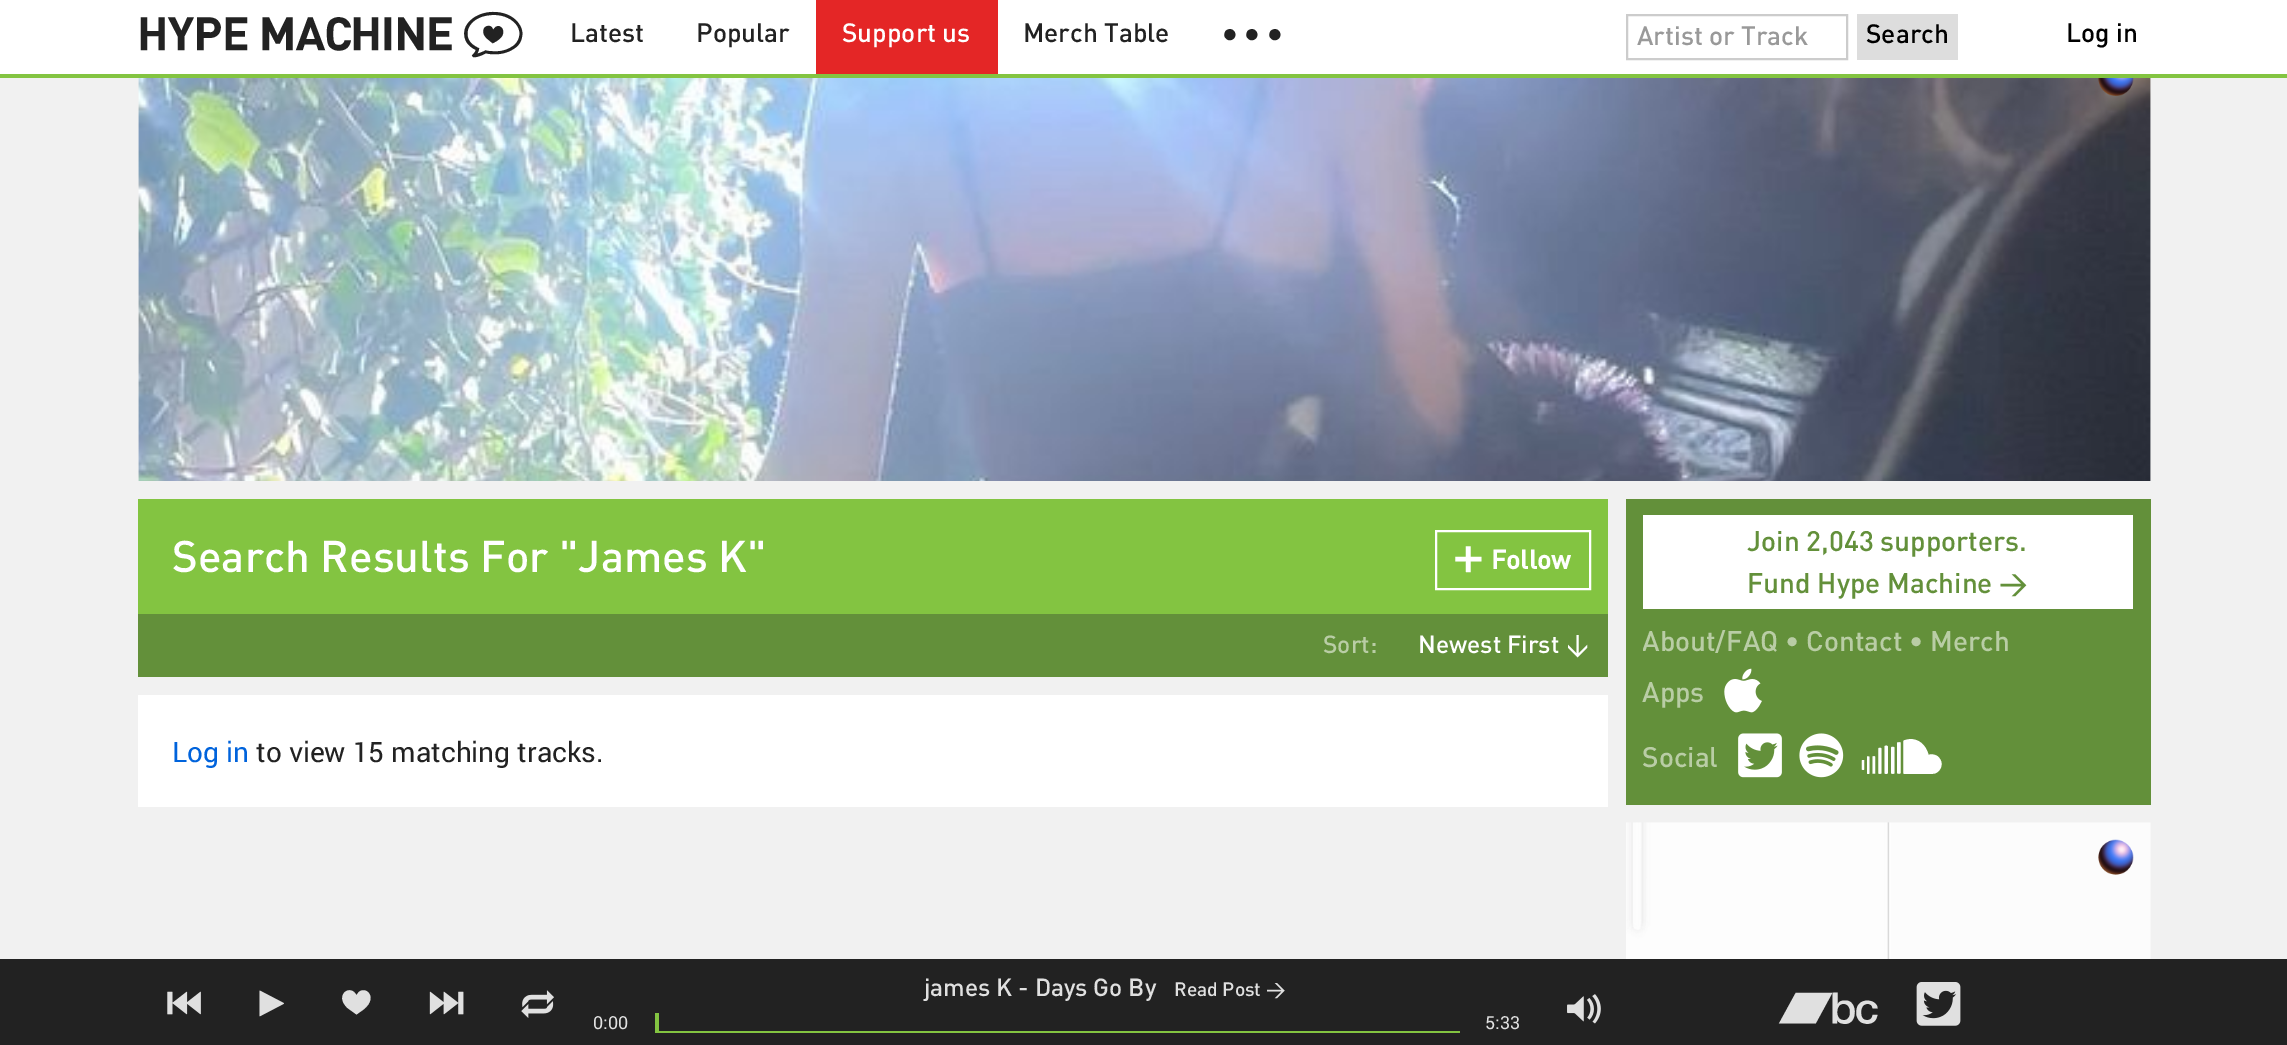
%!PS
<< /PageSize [2287 1045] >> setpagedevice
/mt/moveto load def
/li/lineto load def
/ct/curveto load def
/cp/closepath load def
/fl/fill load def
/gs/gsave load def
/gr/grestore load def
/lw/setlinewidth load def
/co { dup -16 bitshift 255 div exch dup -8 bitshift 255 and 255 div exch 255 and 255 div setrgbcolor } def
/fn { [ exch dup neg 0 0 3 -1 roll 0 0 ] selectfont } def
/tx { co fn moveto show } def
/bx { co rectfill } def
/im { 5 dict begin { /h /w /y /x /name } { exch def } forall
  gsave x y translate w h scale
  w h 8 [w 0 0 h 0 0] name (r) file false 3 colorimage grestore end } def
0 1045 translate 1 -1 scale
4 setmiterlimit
0 0 2287 1045 16#F1F1F1 bx
0 0 2287 74 16#FFFFFF bx
0 74 2287 4 16#83C441 bx
816 0 182 74 16#E42626 bx
16#CCCCCC co
2 lw
1627 15 220 44 rectstroke
1857 14 101 46 16#DDDDDD bx
(media/1.raw) 138 78 2013 403 im
138 499 1470 115 16#83C441 bx
16#FFFFFF co
1436 531 154 58 rectstroke
1626 499 525 306 16#63903A bx
1643 515 490 94 16#FFFFFF bx
(media/2.raw) 1724 668 38 45 im
(media/3.raw) 1738 733 44 45 im
(media/4.raw) 1799 733 45 45 im
(media/5.raw) 1626 822 525 137 im
138 614 1470 63 16#63903A bx
138 695 1470 112 16#FFFFFF bx
0 959 2287 86 16#222222 bx
(media/6.raw) 167 991 34 24 im
(media/7.raw) 259 990 25 27 im
16#E0E0E0 co
356.5 995.5 mt 362 982.5 380.5 996 363.5 1009.5 ct 356.5 1014.5 li 347.5 1008 li 333.5 995 351 983 356.5 995.5 ct cp fl
(media/8.raw) 429 991 35 24 im
(media/9.raw) 521 990 33 28 im
(media/10.raw) 1916 982 45 44 im
655 1031 805 2 16#83C441 bx
655 1013 4 18 16#83C441 bx
(media/11.raw) 1567 994 34 30 im
(1) 137 49 /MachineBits-Regular 66.5 16#222222 tx
(Latest) 570 42 /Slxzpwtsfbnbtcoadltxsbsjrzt-Medium 26.25 16#222222 tx
(Popular) 696 42 /Slxzpwtsfbnbtcoadltxsbsjrzt-Medium 26.25 16#222222 tx
(Support us) 842 42 /Slxzpwtsfbnbtcoadltxsbsjrzt-Medium 26.25 16#FFFFFF tx
(Merch Table) 1023 42 /Slxzpwtsfbnbtcoadltxsbsjrzt-Medium 26.25 16#222222 tx
(● ● ●) 1222 42 /LiberationSerif-Bold 26.25 16#222222 tx
(Artist or Track) 1637 45 /Slxzpwtsfbnbtcoadltxsbsjrzt-Medium 26.25 16#999999 tx
(Search) 1866 43 /Slxzpwtsfbnbtcoadltxsbsjrzt-Medium 26.25 16#000000 tx
(Log in) 2066 42 /Slxzpwtsfbnbtcoadltxsbsjrzt-Medium 26.25 16#000000 tx
(Search Results For "James K") 172 572 /Slxzpwtsfbnbtcoadltxsbsjrzt-Medium 43.75 16#FFFFFF tx
(+) 1454 569 /MachineBits-Regular 26.25 16#FFFFFF tx
(Follow) 1491 569 /Slxzpwtsfbnbtcoadltxsbsjrzt-Bold 26.25 16#FFFFFF tx
(Join 2,043 supporters.) 1747 551 /Slxzpwtsfbnbtcoadltxsbsjrzt-Medium 28 16#63903A tx
(Fund Hype Machine →) 1747 593 /Slxzpwtsfbnbtcoadltxsbsjrzt-Medium 28 16#63903A tx
gs
1643 630 490 28 rectclip
(About/FAQ) 1642 651 /Slxzpwtsfbnbtcoadltxsbsjrzt-Medium 28 16#B9CDA5 tx
gr
(•) 1785 651 /Slxzpwtsfbnbtcoadltxsbsjrzt-Medium 28 16#B9CDA5 tx
(Contact) 1806 651 /Slxzpwtsfbnbtcoadltxsbsjrzt-Medium 28 16#B9CDA5 tx
(•) 1909 651 /Slxzpwtsfbnbtcoadltxsbsjrzt-Medium 28 16#B9CDA5 tx
(Merch) 1930 651 /Slxzpwtsfbnbtcoadltxsbsjrzt-Medium 28 16#B9CDA5 tx
(Apps) 1642 702 /Slxzpwtsfbnbtcoadltxsbsjrzt-Medium 28 16#B9CDA5 tx
(Social) 1642 767 /Slxzpwtsfbnbtcoadltxsbsjrzt-Medium 28 16#B9CDA5 tx
(9) 1860 770 /MachineBits-Regular 35 16#FFFFFF tx
(Sort:) 1323 653 /Slxzpwtsfbnbtcoadltxsbsjrzt-Medium 24.5 16#B9CDA5 tx
(Newest First ↓) 1418 653 /Slxzpwtsfbnbtcoadltxsbsjrzt-Medium 24.5 16#FFFFFF tx
(Log in) 172 762 /Roboto-Regular 28 16#0063DC tx
(to view 15 matching tracks.) 256 762 /Roboto-Regular 28 16#222222 tx
(james K - Days Go By) 924 996 /Slxzpwtsfbnbtcoadltxsbsjrzt-Medium 24.5 16#E0E0E0 tx
(Read Post →) 1174 996 /Slxzpwtsfbnbtcoadltxsbsjrzt-Medium 19.25 16#E0E0E0 tx
(5) 1779 1020 /MachineBits-Regular 31.5 16#E0E0E0 tx
(0:00) 593 1029 /Roboto-Regular 18 16#E0E0E0 tx
(5:33) 1485 1029 /Roboto-Regular 18 16#E0E0E0 tx
showpage
